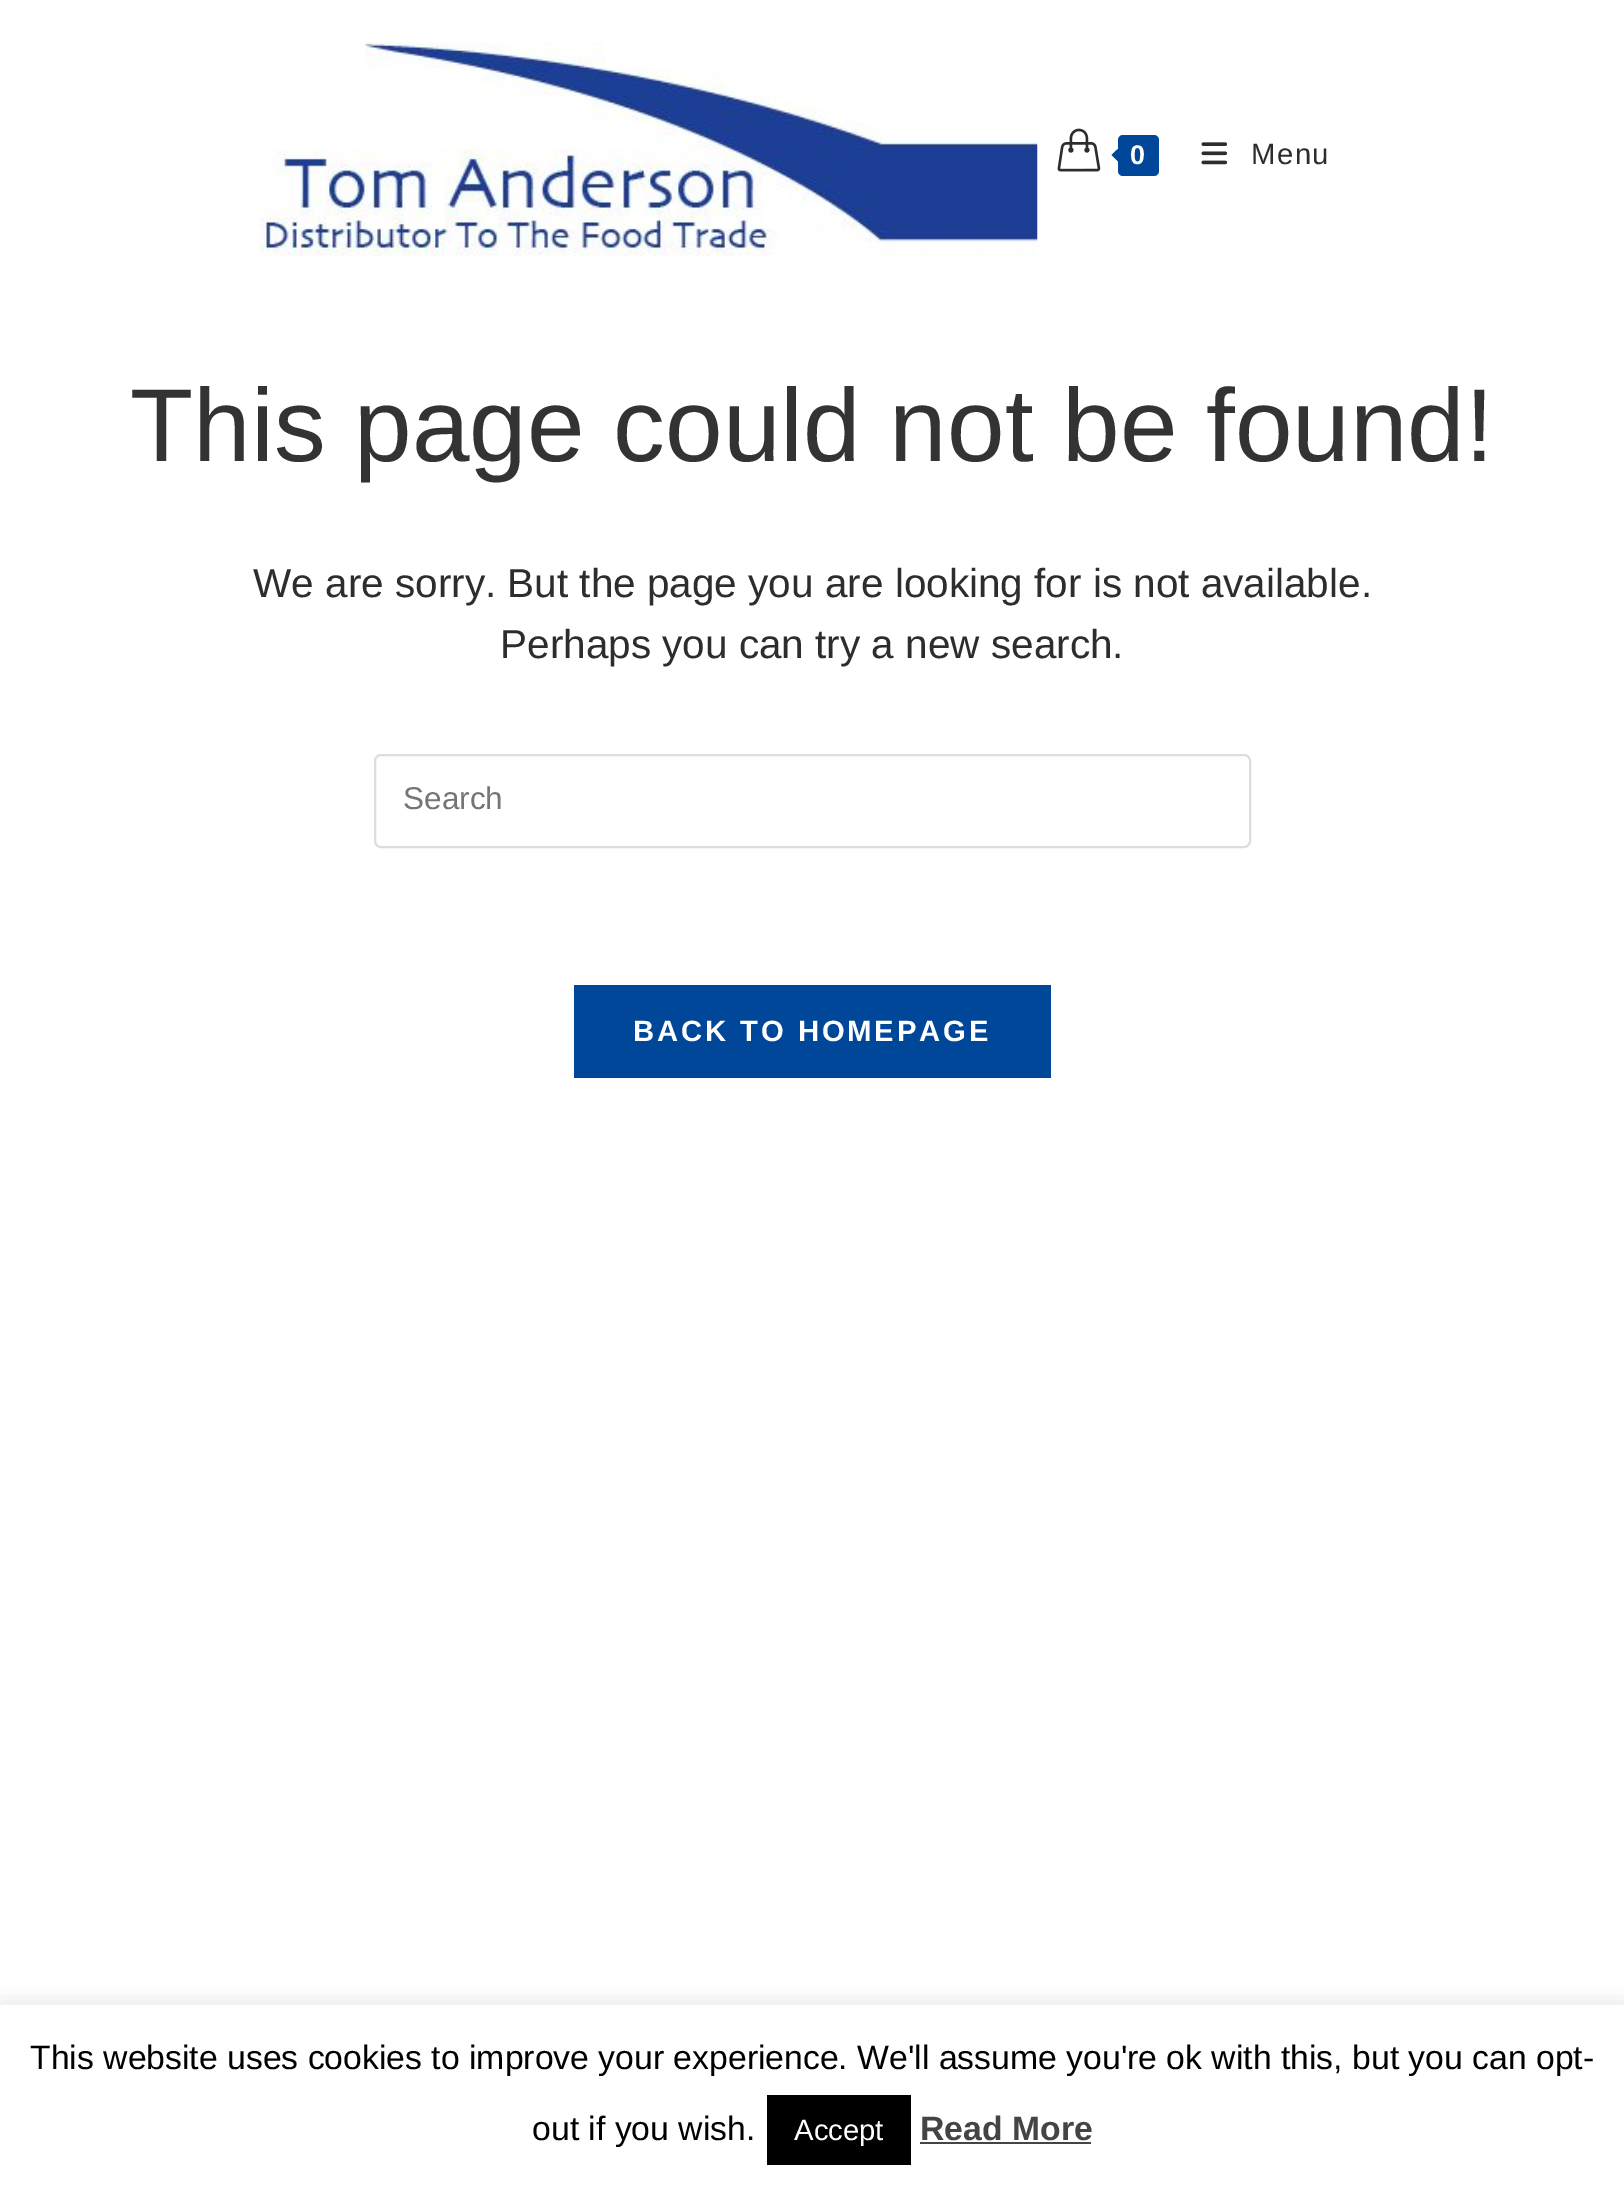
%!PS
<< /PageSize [1624 2190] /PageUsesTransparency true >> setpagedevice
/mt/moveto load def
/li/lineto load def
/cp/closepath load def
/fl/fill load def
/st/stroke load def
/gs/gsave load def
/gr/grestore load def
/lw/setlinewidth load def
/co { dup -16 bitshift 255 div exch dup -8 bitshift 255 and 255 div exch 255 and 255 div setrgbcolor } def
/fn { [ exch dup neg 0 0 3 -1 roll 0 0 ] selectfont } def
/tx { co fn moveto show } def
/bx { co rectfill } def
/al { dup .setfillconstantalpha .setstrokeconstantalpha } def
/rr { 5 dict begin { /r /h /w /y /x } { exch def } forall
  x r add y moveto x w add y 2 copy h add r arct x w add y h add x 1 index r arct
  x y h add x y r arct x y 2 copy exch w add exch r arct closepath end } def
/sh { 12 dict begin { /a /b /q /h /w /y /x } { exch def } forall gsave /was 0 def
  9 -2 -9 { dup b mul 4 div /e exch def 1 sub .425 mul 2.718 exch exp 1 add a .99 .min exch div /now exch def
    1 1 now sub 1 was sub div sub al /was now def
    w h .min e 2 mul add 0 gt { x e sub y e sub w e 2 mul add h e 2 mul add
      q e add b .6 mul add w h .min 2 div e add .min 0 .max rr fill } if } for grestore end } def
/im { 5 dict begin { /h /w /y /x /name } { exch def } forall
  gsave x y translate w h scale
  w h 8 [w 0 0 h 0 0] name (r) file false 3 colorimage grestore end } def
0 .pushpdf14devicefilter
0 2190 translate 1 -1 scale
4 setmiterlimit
0 0 1624 2190 16#FFFFFF bx
(media/1.raw) 259 42 779 215 im
(media/2.raw) 1057 128 44 44 im
16#004799 co
1118 135 41 41 5 rr fl
1123 144 mt 1123 166.5 li 1111.5 155 li cp fl
(media/3.raw) 1201 142 27 23 im
16#DDDDDD co
2 lw
375 755 875 92 6 rr st
574 985 477 93 16#004799 bx
gs
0 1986 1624 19 rectclip
16#ACABAB co
0 2003 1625 186 0 11 .3 sh
gr
767 2095 144 70 16#000000 bx
920 2142 171 2 16#444444 bx
/LiberationSans-Bold 27 fn
16#FFFFFF co
1130 164 mt 1.5 0 (0) ashow
/LiberationSans-Regular 29.25 fn
16#2D2D2D co
1251 164 mt 1.5 0 (Menu) ashow
(This page could not be found!) 130 461 /LiberationSans-Regular 103.5 16#333333 tx
(We are sorry. But the page you are looking for is not available.) 253 597 /LiberationSans-Regular 40.5 16#2D2D2D tx
(Perhaps you can try a new search.) 500 658 /LiberationSans-Regular 40.5 16#2D2D2D tx
(Search) 403 809 /LiberationSans-Regular 31.5 16#757575 tx
/LiberationSans-Bold 29.25 fn
16#FFFFFF co
633 1041 mt 2.9 0 (BACK TO HOMEPAGE) ashow
(This website uses cookies to improve your experience. We'll assume you're ok with this, but you can opt-) 30 2069 /LiberationSans-Regular 33.75 16#000000 tx
(out if you wish.) 532 2140 /LiberationSans-Regular 33.75 16#000000 tx
(Accept) 794 2140 /LiberationSans-Regular 29.25 16#FFFFFF tx
(Read More) 920 2140 /LiberationSans-Bold 33.75 16#444444 tx
.poppdf14devicefilter showpage
